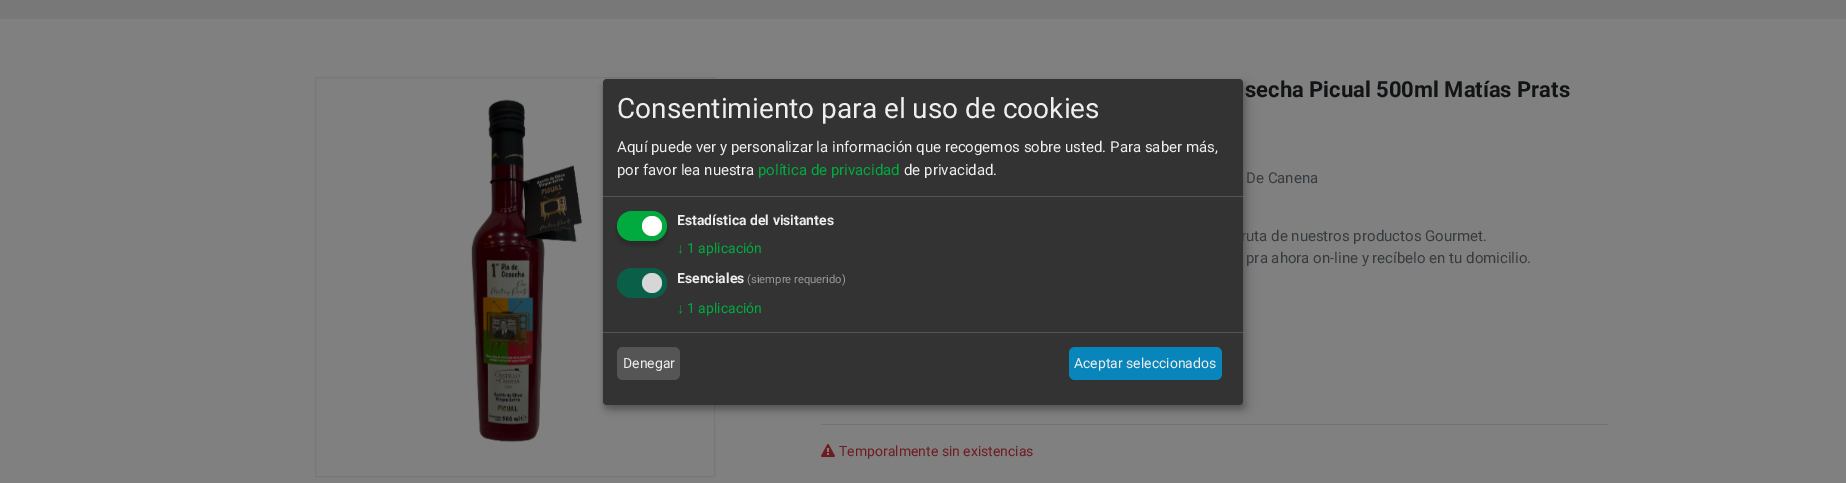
%!PS
<< /PageSize [1846 483] /PageUsesTransparency true >> setpagedevice
/fl/fill load def
/co { dup -16 bitshift 255 div exch dup -8 bitshift 255 and 255 div exch 255 and 255 div setrgbcolor } def
/fn { [ exch dup neg 0 0 3 -1 roll 0 0 ] selectfont } def
/tx { co fn moveto show } def
/bx { co rectfill } def
/al { dup .setfillconstantalpha .setstrokeconstantalpha } def
/ci { newpath 0 360 arc closepath } def
/rr { 5 dict begin { /r /h /w /y /x } { exch def } forall
  x r add y moveto x w add y 2 copy h add r arct x w add y h add x 1 index r arct
  x y h add x y r arct x y 2 copy exch w add exch r arct closepath end } def
/sh { 12 dict begin { /a /b /q /h /w /y /x } { exch def } forall gsave /was 0 def
  9 -2 -9 { dup b mul 4 div /e exch def 1 sub .425 mul 2.718 exch exp 1 add a .99 .min exch div /now exch def
    1 1 now sub 1 was sub div sub al /was now def
    w h .min e 2 mul add 0 gt { x e sub y e sub w e 2 mul add h e 2 mul add
      q e add b .6 mul add w h .min 2 div e add .min 0 .max rr fill } if } for grestore end } def
/im { 5 dict begin { /h /w /y /x /name } { exch def } forall
  gsave x y translate w h scale
  w h 8 [w 0 0 h 0 0] name (r) file false 3 colorimage grestore end } def
0 .pushpdf14devicefilter
0 483 translate 1 -1 scale
4 setmiterlimit
0 0 1846 483 16#808080 bx
0 0 1846 19 16#787878 bx
16#777777 co
315.5 77.5 399 399 rectstroke
(media/1.raw) 471 99 111 343 im
821 424 787 1 16#6F7173 bx
(media/2.raw) 821 444 14 13 im
16#000000 co
608 84 640 326 4 5 .19 sh
603 83 640 326 4 3 .2 sh
(secha Picual 500ml Matías Prats) 1245 97 /Roboto-Bold 22 16#111315 tx
(De Canena) 1246 183 /Roboto-Regular 15 16#363B3F tx
(ruta de nuestros productos Gourmet.) 1241 241 /Roboto-Regular 15 16#363B3F tx
(pra ahora on-line y recíbelo en tu domicilio.) 1246 263 /Roboto-Regular 15 16#363B3F tx
(Temporalmente sin existencias) 839 456 /Roboto-Regular 14 16#6E1B23 tx
16#333333 co
603 79 640 326 4 rr fl
603 196 640 1 16#555555 bx
(Consentimiento para el uso de cookies) 617 118 /Roboto-Regular 28 16#EEEEEE tx
(Aquí puede ver y personalizar la información que recogemos sobre usted. Para saber más,) 617 152 /Roboto-Regular 15 16#EEEEEE tx
(por favor lea nuestra) 617 175 /Roboto-Regular 15 16#EEEEEE tx
(política de privacidad) 758 175 /Roboto-Regular 15 16#00AA3E tx
(de privacidad.) 904 175 /Roboto-Regular 15 16#EEEEEE tx
16#000000 co
617 215 50 30 15 3 .2 sh
16#00AA3E co
617 211 50 30 15 rr fl
16#FFFFFF co
652 226 10 ci fl
(Estadística del visitantes) 677 225 /Roboto-Bold 14 16#EEEEEE tx
(↓) 677 253 /LiberationSans-Regular 14 16#00AA3E tx
(1 aplicación) 687 253 /Roboto-Regular 14 16#00AA3E tx
16#0A5F49 co
617 268 50 30 15 rr fl
16#D6D6D6 co
652 283 10 ci fl
(Esenciales) 677 283 /Roboto-Bold 14 16#EEEEEE tx
(\(siempre requerido\)) 747 283 /Roboto-Regular 11.25 16#999999 tx
(↓) 677 313 /LiberationSans-Regular 14 16#00AA3E tx
(1 aplicación) 687 313 /Roboto-Regular 14 16#00AA3E tx
603 332 640 1 16#555555 bx
617 347 63 33 6 rr fl
(Denegar) 623 368 /Roboto-Regular 14 16#EEEEEE tx
16#0885BA co
1069 347 153 33 6 rr fl
(Aceptar seleccionados) 1074 368 /Roboto-Regular 14 16#EEEEEE tx
.poppdf14devicefilter showpage
